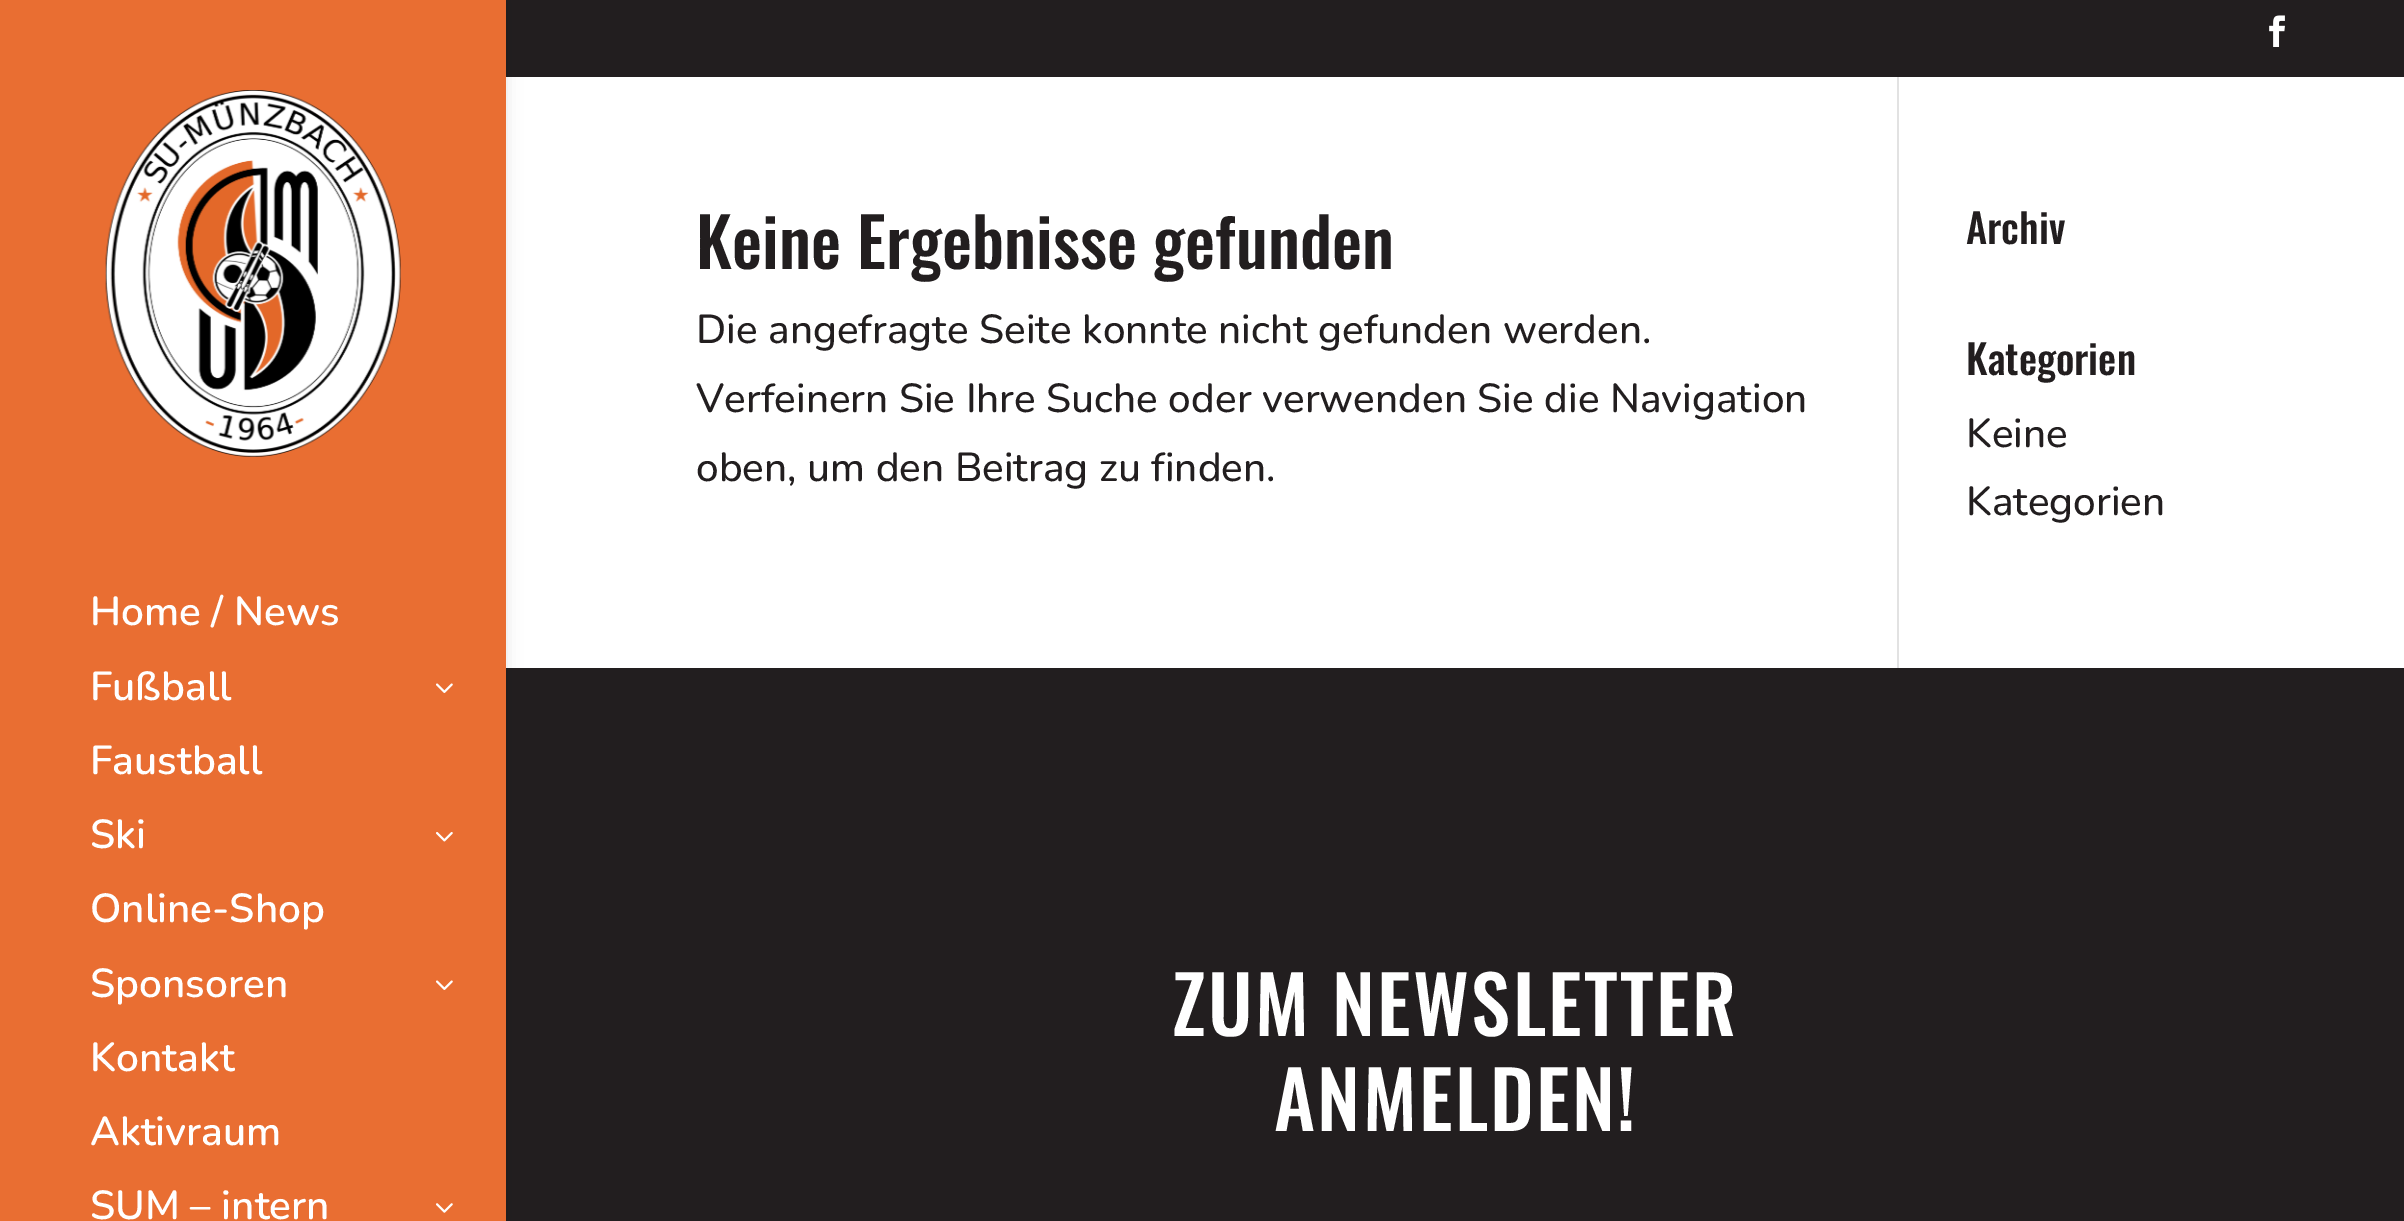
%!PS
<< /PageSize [2404 1221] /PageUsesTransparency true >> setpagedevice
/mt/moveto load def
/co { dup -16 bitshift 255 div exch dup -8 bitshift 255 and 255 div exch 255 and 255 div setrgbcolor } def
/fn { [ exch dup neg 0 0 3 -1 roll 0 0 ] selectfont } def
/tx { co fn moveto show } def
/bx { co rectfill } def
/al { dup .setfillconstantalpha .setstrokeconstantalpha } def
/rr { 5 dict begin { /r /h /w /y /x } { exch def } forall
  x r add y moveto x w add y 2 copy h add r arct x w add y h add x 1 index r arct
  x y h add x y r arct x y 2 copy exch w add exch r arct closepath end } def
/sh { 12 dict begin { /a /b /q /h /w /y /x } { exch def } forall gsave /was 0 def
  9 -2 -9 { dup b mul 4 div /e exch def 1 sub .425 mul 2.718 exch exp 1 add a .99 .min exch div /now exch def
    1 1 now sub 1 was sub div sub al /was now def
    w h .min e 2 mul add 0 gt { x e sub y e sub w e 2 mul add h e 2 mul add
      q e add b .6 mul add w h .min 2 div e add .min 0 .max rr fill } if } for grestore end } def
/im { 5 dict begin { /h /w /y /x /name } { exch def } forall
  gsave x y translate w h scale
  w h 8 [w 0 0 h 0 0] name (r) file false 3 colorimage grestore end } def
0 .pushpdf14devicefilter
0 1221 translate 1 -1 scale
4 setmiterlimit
0 0 2404 1221 16#FFFFFF bx
506 0 1898 77 16#221E1F bx
(media/1.raw) 2269 15 16 32 im
506 668 1898 553 16#221E1F bx
16#000000 co
0 0 506 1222 0 8 .1 sh
0 0 506 1221 16#E96E32 bx
(media/2.raw) 105 90 296 367 im
(media/3.raw) 436 683 17 10 im
(media/4.raw) 436 832 17 10 im
(media/3.raw) 436 980 17 10 im
(media/5.raw) 436 1203 17 10 im
1897 77 2 591 16#E2E2E2 bx
(Home / News) 90 625 /Nunito-SemiBold 40.5 16#FFFFFF tx
(Fußball) 90 700 /Nunito-SemiBold 40.5 16#FFFFFF tx
(Faustball) 90 774 /Nunito-SemiBold 40.5 16#FFFFFF tx
(Ski) 90 848 /Nunito-SemiBold 40.5 16#FFFFFF tx
(Online-Shop) 90 922 /Nunito-SemiBold 40.5 16#FFFFFF tx
(Sponsoren) 90 997 /Nunito-SemiBold 40.5 16#FFFFFF tx
(Kontakt) 90 1071 /Nunito-SemiBold 40.5 16#FFFFFF tx
(Aktivraum) 90 1145 /Nunito-SemiBold 40.5 16#FFFFFF tx
(SUM – intern) 90 1219 /Nunito-SemiBold 40.5 16#FFFFFF tx
(Keine Ergebnisse gefunden) 696 269 /Oswald-Medium 67.5 16#221E1F tx
(Die angefragte Seite konnte nicht gefunden werden.) 696 343 /Nunito-ExtraLight 40.5 16#221E1F tx
(Verfeinern Sie Ihre Suche oder verwenden Sie die Navigation) 696 412 /Nunito-ExtraLight 40.5 16#221E1F tx
(oben, um den Beitrag zu finden.) 696 481 /Nunito-ExtraLight 40.5 16#221E1F tx
(Archiv) 1966 244 /Oswald-Medium 40.5 16#221E1F tx
(Kategorien) 1966 375 /Oswald-Medium 40.5 16#221E1F tx
(Keine) 1966 447 /Nunito-ExtraLight 40.5 16#221E1F tx
(Kategorien) 1966 515 /Nunito-ExtraLight 40.5 16#221E1F tx
/Oswald-Medium 78.75 fn
16#FFFFFF co
1172 1036 mt 2.25 0 (ZUM NEWSLETTER) ashow
1274 1131 mt 2.25 0 (ANMELDEN!) ashow
.poppdf14devicefilter showpage
